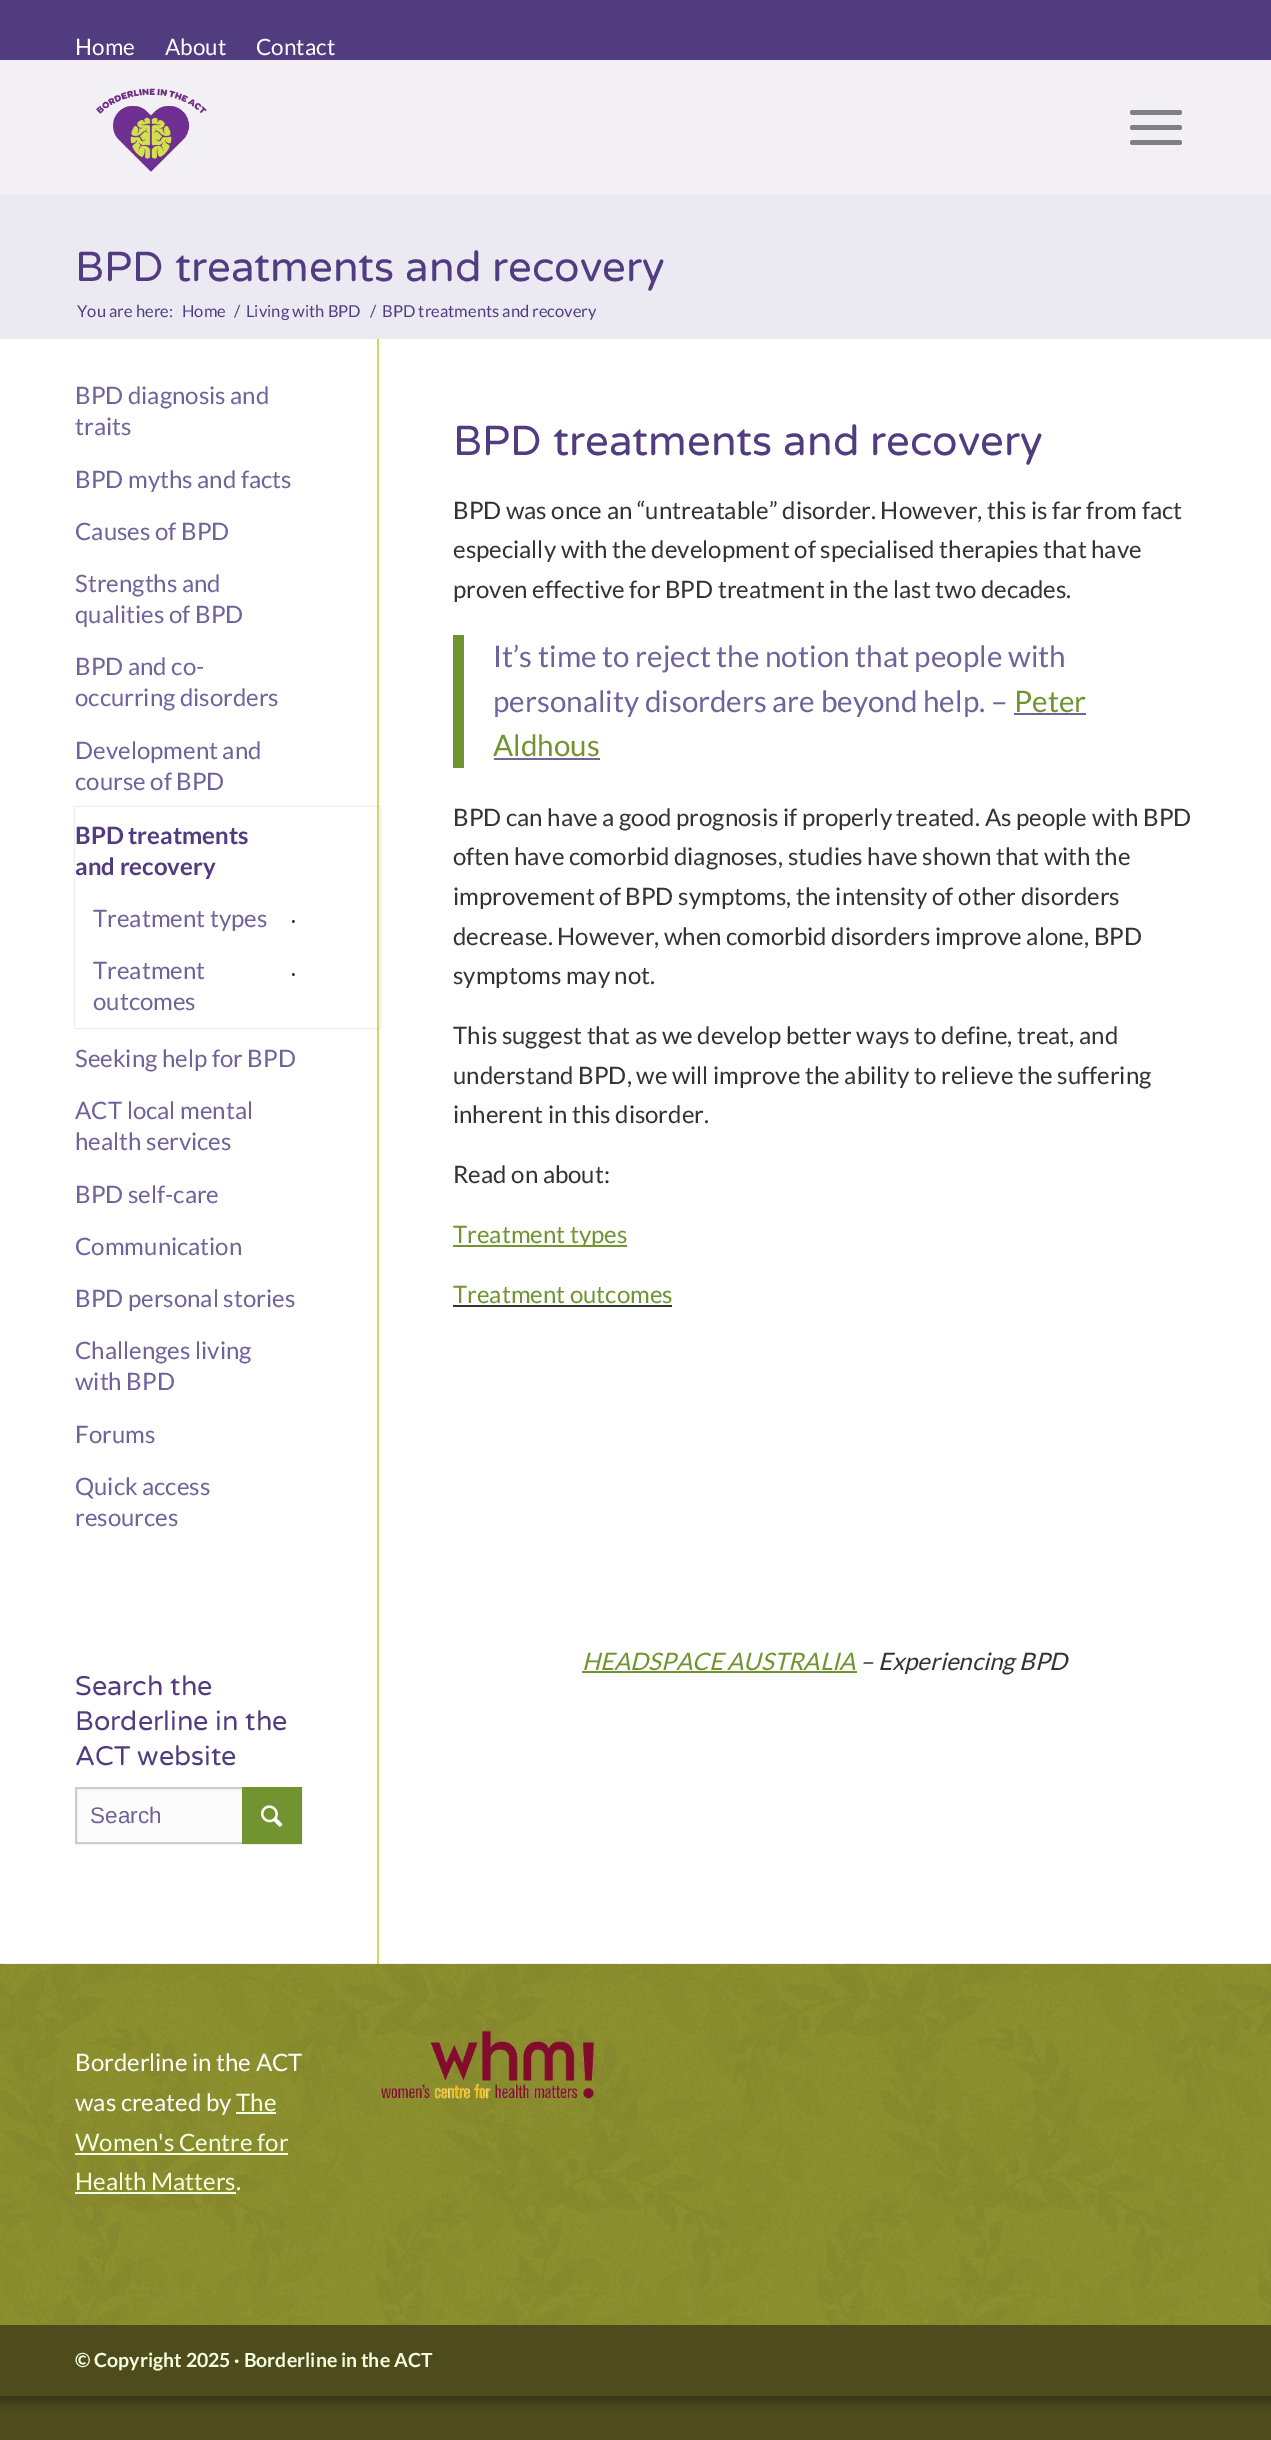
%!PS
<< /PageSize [1271 2440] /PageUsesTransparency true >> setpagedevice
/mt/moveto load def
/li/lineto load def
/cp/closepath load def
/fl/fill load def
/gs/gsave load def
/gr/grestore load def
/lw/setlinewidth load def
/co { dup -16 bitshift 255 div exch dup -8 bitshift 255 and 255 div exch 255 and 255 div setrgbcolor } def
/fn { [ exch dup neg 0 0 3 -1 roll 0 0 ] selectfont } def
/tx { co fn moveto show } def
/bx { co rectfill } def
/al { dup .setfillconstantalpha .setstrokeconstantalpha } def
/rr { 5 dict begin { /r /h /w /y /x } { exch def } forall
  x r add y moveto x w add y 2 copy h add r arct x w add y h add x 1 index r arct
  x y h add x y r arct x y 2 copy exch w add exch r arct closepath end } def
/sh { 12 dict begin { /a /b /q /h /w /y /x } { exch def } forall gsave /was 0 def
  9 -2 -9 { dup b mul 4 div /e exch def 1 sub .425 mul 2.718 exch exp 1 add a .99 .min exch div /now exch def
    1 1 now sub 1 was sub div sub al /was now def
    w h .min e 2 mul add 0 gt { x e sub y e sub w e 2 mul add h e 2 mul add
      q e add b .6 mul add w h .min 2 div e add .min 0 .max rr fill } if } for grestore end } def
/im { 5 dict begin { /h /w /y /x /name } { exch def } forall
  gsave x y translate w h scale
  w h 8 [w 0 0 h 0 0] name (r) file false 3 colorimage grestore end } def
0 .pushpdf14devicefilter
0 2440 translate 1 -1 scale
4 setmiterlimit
0 0 1271 2440 16#4E4C1C bx
16#000000 co
-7 -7 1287 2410 0 4 .3 sh
0 0 1271 60 16#503C7F bx
0 60 1271 135 16#F2F0F5 bx
(media/1.raw) 96 88 111 84 im
16#808080 co
1130 125 52 5 2.5 rr fl
1130 110 52 5 2.5 rr fl
1130 140 52 5 2.5 rr fl
0 195 1271 144 16#EBE9F1 bx
0 339 1271 1625 16#FFFFFF bx
377 339 2 1625 16#D5D563 bx
gs
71 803 mt 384 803 li 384 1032 li 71 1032 li cp 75 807 mt 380 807 li 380 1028 li 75 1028 li cp eoclip newpath
16#000000 co
75 807 305 221 0 1 .2 sh
gr
75 1027 302 1 16#FFFFFF bx
77 1789 165 53 16#FCFCFC bx
16#CCCCCC co
2 lw
76 1788 225 55 rectstroke
242 1787 60 57 16#719430 bx
(media/2.raw) 261 1805 22 22 im
453 635 11 133 16#719430 bx
1014 713 72 2 16#716299 bx
494 758 106 2 16#716299 bx
453 1245 174 2 16#719430 bx
453 1305 219 2 16#333333 bx
582 1671 275 2 16#719430 bx
0 1964 1271 361 16#969A30 bx
(media/3.raw) 0 1963 1271 362 im
236 2112 40 2 16#F3FFDE bx
75 2153 213 2 16#F3FFDE bx
75 2192 161 2 16#F3FFDE bx
(media/4.raw) 381 2030 214 69 im
0 2325 1271 71 16#4E4C1C bx
(Home) 75 55 /Lato-Regular 22.5 16#FFFFFF tx
(About) 165 55 /Lato-Regular 22.5 16#FFFFFF tx
(Contact) 256 55 /Lato-Regular 22.5 16#FFFFFF tx
(BPD treatments and recovery) 75 281 /VarelaRound-Regular 42 16#503C7F tx
(You are here:) 77 317 /Lato-Regular 16.5 16#503C7F tx
(Home) 182 317 /Lato-Regular 16.5 16#503C7F tx
(/) 234 317 /Lato-Regular 16.5 16#503C7F tx
(Living with BPD) 246 317 /Lato-Regular 16.5 16#503C7F tx
(/) 370 317 /Lato-Regular 16.5 16#503C7F tx
(BPD treatments and recovery) 382 317 /Lato-Regular 16.5 16#503C7F tx
(BPD diagnosis and) 75 404 /Lato-Regular 24 16#716299 tx
(traits) 75 435 /Lato-Regular 24 16#716299 tx
(BPD myths and facts) 75 488 /Lato-Regular 24 16#716299 tx
(Causes of BPD) 75 540 /Lato-Regular 24 16#716299 tx
(Strengths and) 75 592 /Lato-Regular 24 16#716299 tx
(qualities of BPD) 75 623 /Lato-Regular 24 16#716299 tx
(BPD and co-) 75 675 /Lato-Regular 24 16#716299 tx
(occurring disorders) 75 706 /Lato-Regular 24 16#716299 tx
(Development and) 75 759 /Lato-Regular 24 16#716299 tx
(course of BPD) 75 790 /Lato-Regular 24 16#716299 tx
(BPD treatments) 75 844 /Lato-Bold 24 16#503C7F tx
(and recovery) 75 875 /Lato-Bold 24 16#503C7F tx
(Treatment types) 93 927 /Lato-Regular 24 16#716299 tx
(∙) 290 928 /LiberationSans-Regular 24 16#000000 tx
(Treatment) 93 979 /Lato-Regular 24 16#716299 tx
(outcomes) 93 1010 /Lato-Regular 24 16#716299 tx
(∙) 290 981 /LiberationSans-Regular 24 16#000000 tx
(Seeking help for BPD) 75 1067 /Lato-Regular 24 16#716299 tx
(ACT local mental) 75 1119 /Lato-Regular 24 16#716299 tx
(health services) 75 1150 /Lato-Regular 24 16#716299 tx
(BPD self-care) 75 1203 /Lato-Regular 24 16#716299 tx
(Communication) 75 1255 /Lato-Regular 24 16#716299 tx
(BPD personal stories) 75 1307 /Lato-Regular 24 16#716299 tx
(Challenges living) 75 1359 /Lato-Regular 24 16#716299 tx
(with BPD) 75 1390 /Lato-Regular 24 16#716299 tx
(Forums) 75 1443 /Lato-Regular 24 16#716299 tx
(Quick access) 75 1495 /Lato-Regular 24 16#716299 tx
(resources) 75 1526 /Lato-Regular 24 16#716299 tx
(Search the) 75 1695 /VarelaRound-Regular 27 16#503C7F tx
(Borderline in the) 75 1730 /VarelaRound-Regular 27 16#503C7F tx
(ACT website) 75 1765 /VarelaRound-Regular 27 16#503C7F tx
(Search) 90 1823 /LiberationSans-Regular 22.5 16#716299 tx
(BPD treatments and recovery) 453 455 /VarelaRound-Regular 42 16#503C7F tx
(BPD was once an “untreatable” disorder. However, this is far from fact) 453 519 /Lato-Regular 24 16#333333 tx
(especially with the development of specialised therapies that have) 453 558 /Lato-Regular 24 16#333333 tx
(proven effective for BPD treatment in the last two decades.) 453 598 /Lato-Regular 24 16#333333 tx
(It’s time to reject the notion that people with) 493 667 /Lato-Regular 29.6 16#716299 tx
(personality disorders are beyond help. –) 493 712 /Lato-Regular 29.6 16#716299 tx
(Peter) 1014 712 /Lato-Regular 29.6 16#719430 tx
(Aldhous) 493 756 /Lato-Regular 29.6 16#719430 tx
(BPD can have a good prognosis if properly treated. As people with BPD) 453 826 /Lato-Regular 24 16#333333 tx
(often have comorbid diagnoses, studies have shown that with the) 453 865 /Lato-Regular 24 16#333333 tx
(improvement of BPD symptoms, the intensity of other disorders) 453 905 /Lato-Regular 24 16#333333 tx
(decrease. However, when comorbid disorders improve alone, BPD) 453 945 /Lato-Regular 24 16#333333 tx
(symptoms may not.) 453 984 /Lato-Regular 24 16#333333 tx
(This suggest that as we develop better ways to define, treat, and) 453 1044 /Lato-Regular 24 16#333333 tx
(understand BPD, we will improve the ability to relieve the suffering) 453 1084 /Lato-Regular 24 16#333333 tx
(inherent in this disorder.) 453 1123 /Lato-Regular 24 16#333333 tx
(Read on about:) 453 1183 /Lato-Regular 24 16#333333 tx
(Treatment types) 453 1243 /Lato-Regular 24 16#719430 tx
(Treatment outcomes) 453 1303 /Lato-Regular 24 16#719430 tx
(HEADSPACE AUSTRALIA) 582 1670 /Lato-Italic 24 16#719430 tx
(– Experiencing BPD) 860 1670 /Lato-Italic 24 16#333333 tx
(Borderline in the ACT) 75 2071 /Lato-Regular 24 16#FFFFFF tx
(was created by) 75 2111 /Lato-Regular 24 16#FFFFFF tx
(The) 236 2111 /Lato-Regular 24 16#F3FFDE tx
(Women's Centre for) 75 2151 /Lato-Regular 24 16#F3FFDE tx
(Health Matters) 75 2190 /Lato-Regular 24 16#F3FFDE tx
(.) 236 2190 /Lato-Regular 24 16#FFFFFF tx
(© Copyright 2025 · Borderline in the ACT) 75 2367 /Lato-Bold 19.5 16#F3FFDE tx
.poppdf14devicefilter showpage
